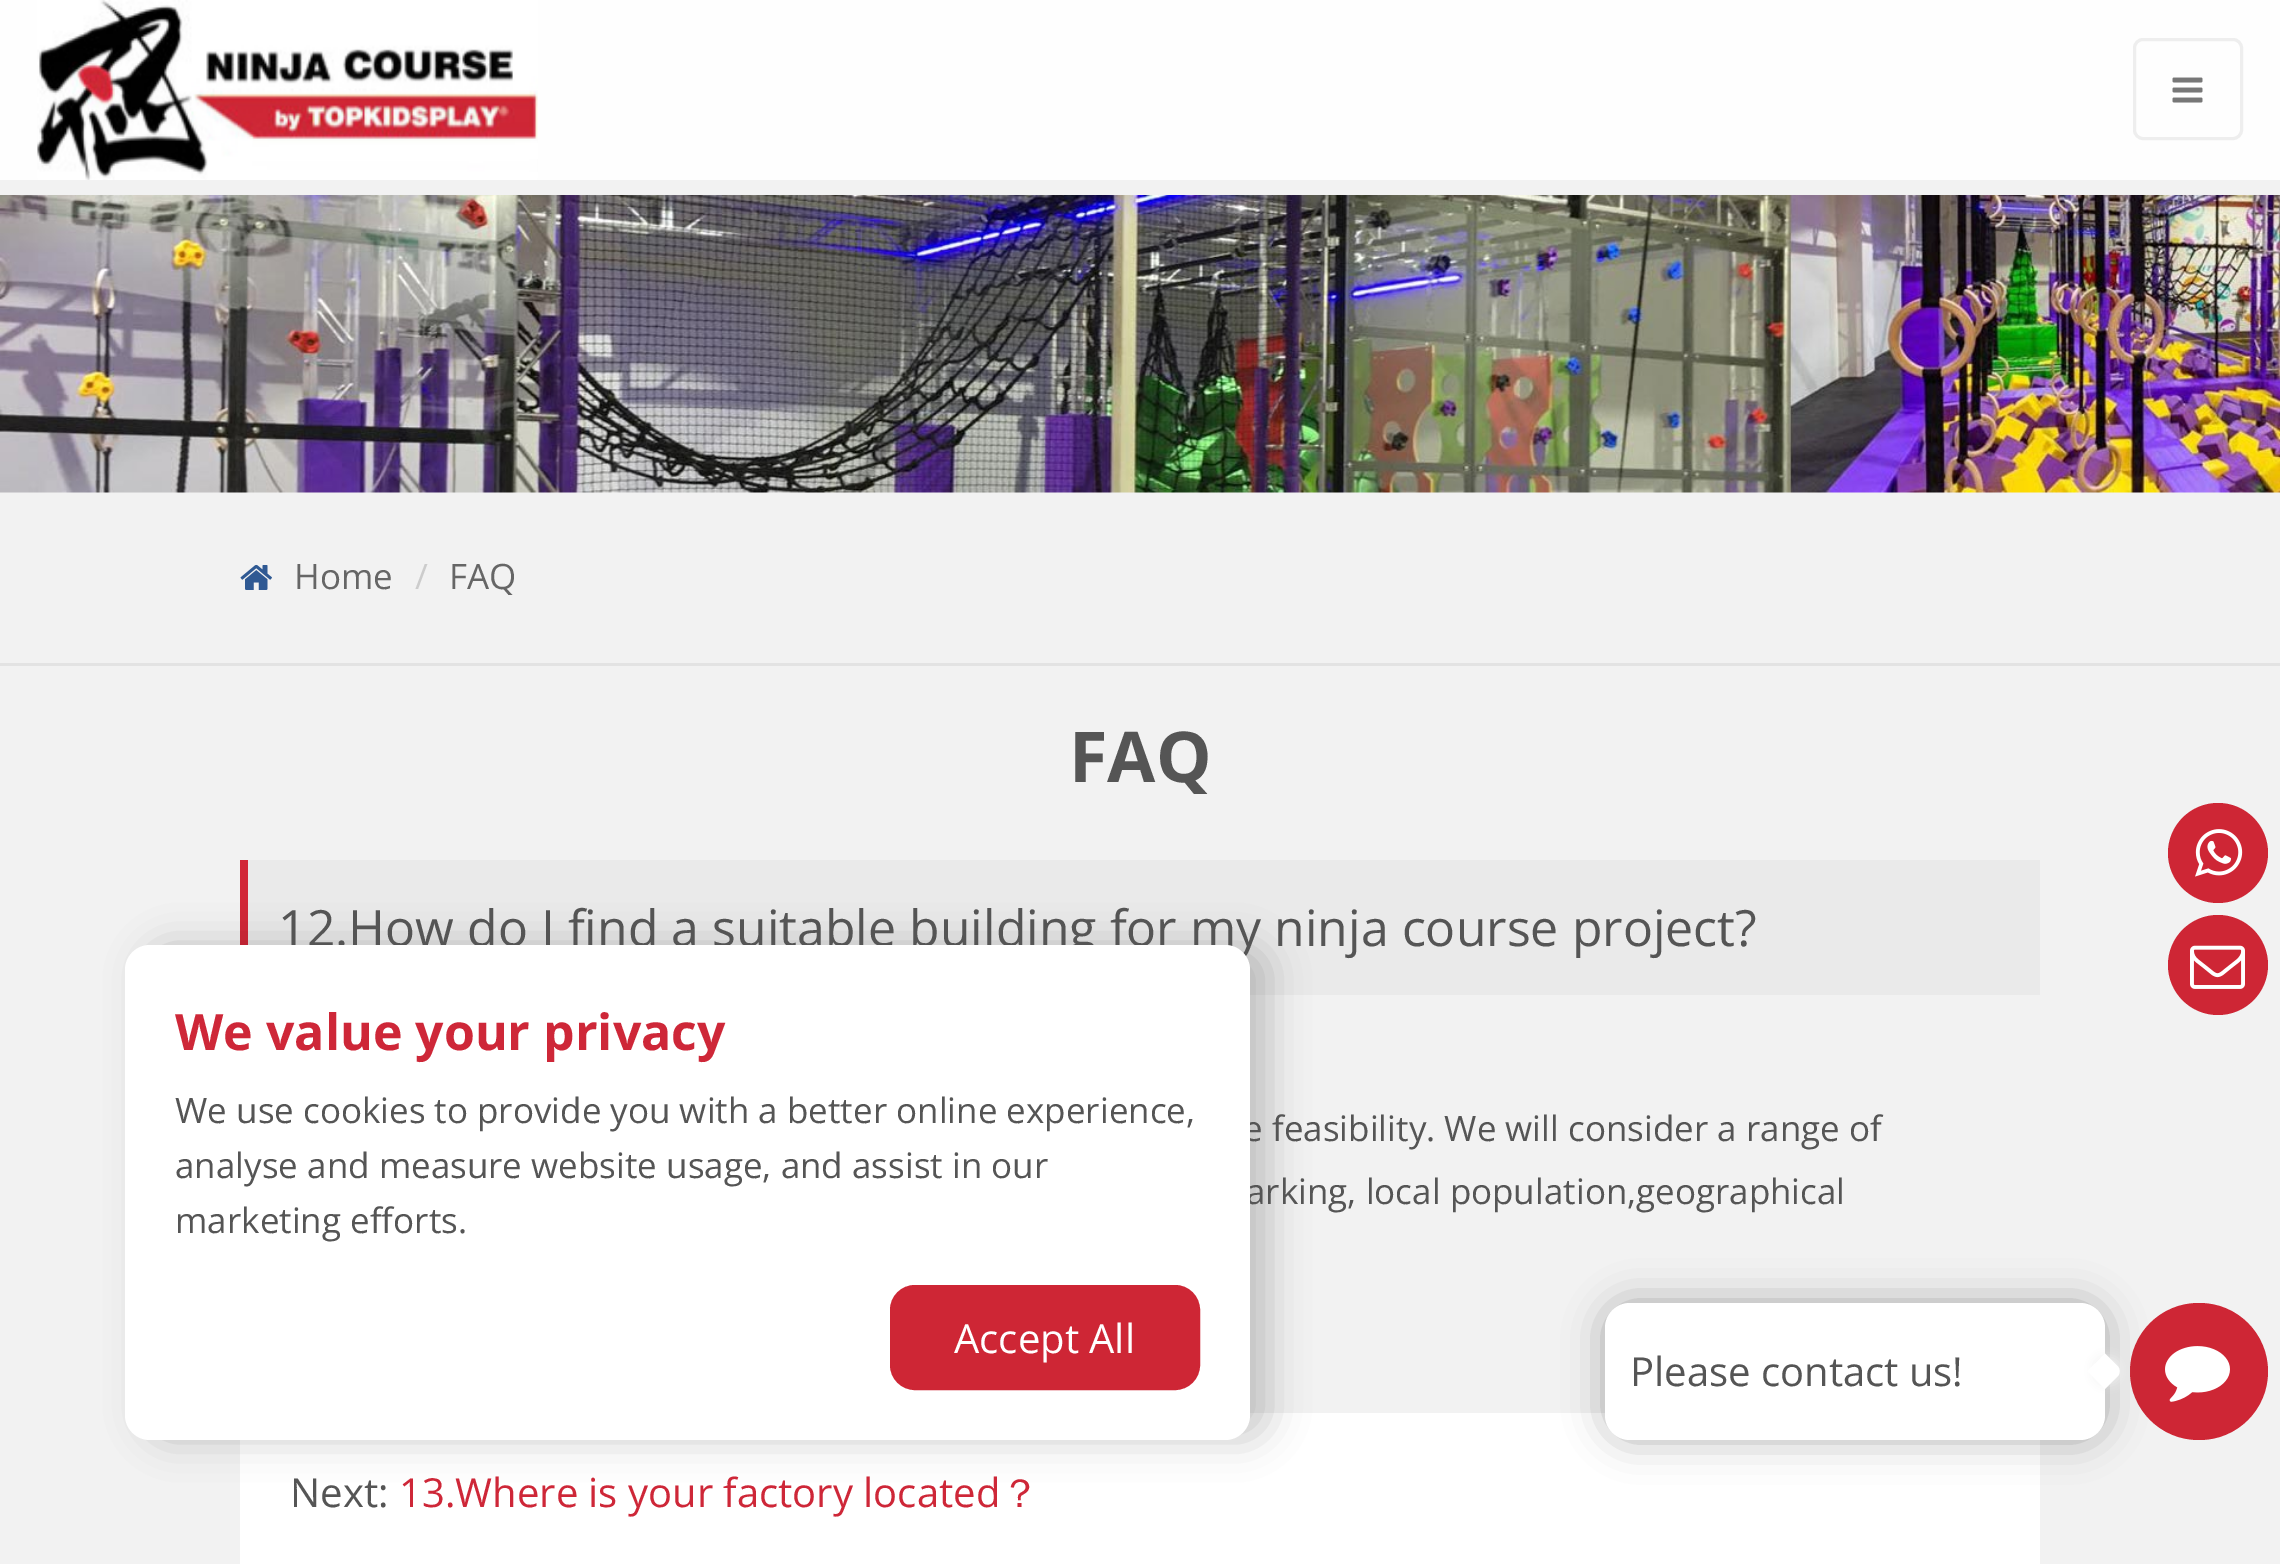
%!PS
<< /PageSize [2280 1564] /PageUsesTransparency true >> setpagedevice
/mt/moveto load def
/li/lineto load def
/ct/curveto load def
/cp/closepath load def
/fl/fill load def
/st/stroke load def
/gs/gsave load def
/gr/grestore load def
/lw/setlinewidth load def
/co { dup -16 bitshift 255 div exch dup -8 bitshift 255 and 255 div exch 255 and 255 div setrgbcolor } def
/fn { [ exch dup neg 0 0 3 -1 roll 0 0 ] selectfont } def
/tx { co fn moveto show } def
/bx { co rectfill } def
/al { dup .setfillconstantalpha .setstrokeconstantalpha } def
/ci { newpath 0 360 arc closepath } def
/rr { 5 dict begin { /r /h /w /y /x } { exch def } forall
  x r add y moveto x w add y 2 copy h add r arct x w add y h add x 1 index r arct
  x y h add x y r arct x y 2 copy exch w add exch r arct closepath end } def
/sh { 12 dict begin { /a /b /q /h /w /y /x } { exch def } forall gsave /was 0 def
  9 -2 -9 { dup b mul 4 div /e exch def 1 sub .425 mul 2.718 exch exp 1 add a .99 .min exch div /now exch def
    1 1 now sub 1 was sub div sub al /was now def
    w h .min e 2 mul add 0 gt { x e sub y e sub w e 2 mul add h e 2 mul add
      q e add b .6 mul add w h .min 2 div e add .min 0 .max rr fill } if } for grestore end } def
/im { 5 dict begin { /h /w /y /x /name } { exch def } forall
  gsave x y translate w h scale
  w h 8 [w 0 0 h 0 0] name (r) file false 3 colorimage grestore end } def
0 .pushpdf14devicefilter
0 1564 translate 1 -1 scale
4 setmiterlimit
0 0 2280 1564 16#F2F2F2 bx
0 0 2280 180 16#FEFEFE bx
(media/1.raw) 37 0 501 180 im
16#EEEEEE co
3 lw
2134.5 39.5 107 99 8.5 rr st
(media/2.raw) 2172 77 31 26 im
(media/3.raw) 0 195 2280 298 im
0 663 2280 3 16#E3E3E3 bx
(media/4.raw) 240 564 32 26 im
248 860 1792 135 16#EAEAEA bx
240 860 8 85 16#D22737 bx
240 1413 1800 151 16#FFFFFF bx
16#CE2635 co
2218 853 50 ci fl
(media/5.raw) 2195 829 48 48 im
2218 965 50 ci fl
(media/6.raw) 2190 945 55 44 im
16#000000 co
145 945 1125 495 25 19 .2 sh
16#CE2635 co
2130 1303 138 137 68.5 rr fl
(media/7.raw) 2165 1346 65 56 im
16#000000 co
1605 1303 500 137 25 20 .3 sh
16#FFFFFF co
1605 1303 500 137 25 rr fl
16#EEEEEE co
2095 1358 25 25 8 5 1 sh
16#FFFFFF co
2105 1353.5 mt 2117.5 1366 li 2120.5 1369 2120.5 1373.5 2117.5 1376.5 ct 2105 1389 li 2087.5 1371 li cp fl
(Home) 294 589 /OpenSans-Regular 35 16#666666 tx
(/) 415 589 /OpenSans-Regular 35 16#CCCCCC tx
(FAQ) 449 589 /OpenSans-Regular 35 16#666666 tx
(FAQ) 1069 782 /OpenSans-Bold 70 16#555555 tx
(12.How do I find a suitable building for my ninja course project?) 278 946 /OpenSans-Regular 50 16#555555 tx
(e feasibility. We will consider a range of) 1243 1141 /OpenSans-Regular 35 16#555555 tx
(arking, local population,geographical) 1246 1204 /OpenSans-Regular 35 16#555555 tx
(Next:) 290 1507 /OpenSans-Regular 40 16#555555 tx
(13.Where is your factory located) 399 1507 /OpenSans-Regular 40 16#CE2738 tx
(？) 1000 1507 /WenQuanYiZenHei-Medium 40 16#CE2738 tx
16#FFFFFF co
125 945 1125 495 25 rr fl
(We value your privacy) 175 1050 /OpenSans-Bold 50 16#CE2738 tx
(We use cookies to provide you with a better online experience,) 175 1123 /OpenSans-Regular 35 16#555555 tx
(analyse and measure website usage, and assist in our) 175 1178 /OpenSans-Regular 35 16#555555 tx
(marketing efforts.) 175 1233 /OpenSans-Regular 35 16#555555 tx
16#CE2635 co
891.5 1286.5 307 102 23.5 rr gs fl gr
st
(Accept All) 954 1353 /OpenSans-Regular 40 16#FFFFFF tx
(Please contact us!) 1630 1386 /OpenSans-Regular 40 16#555555 tx
.poppdf14devicefilter showpage
